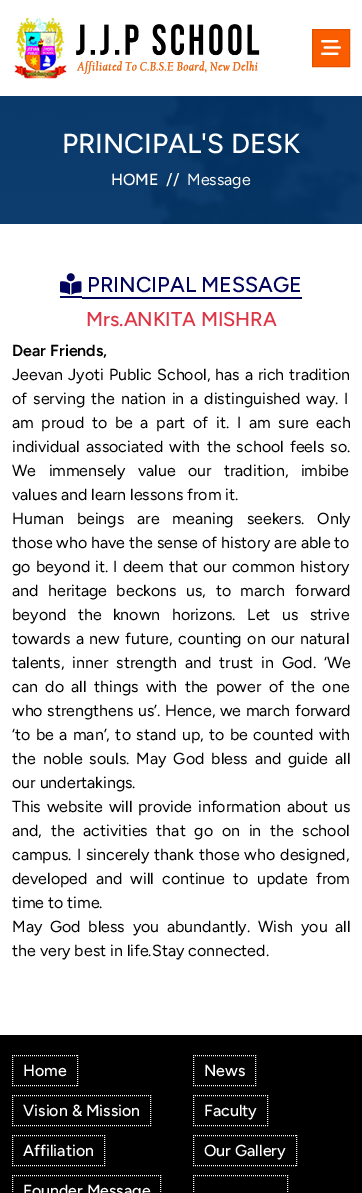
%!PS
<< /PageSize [362 1193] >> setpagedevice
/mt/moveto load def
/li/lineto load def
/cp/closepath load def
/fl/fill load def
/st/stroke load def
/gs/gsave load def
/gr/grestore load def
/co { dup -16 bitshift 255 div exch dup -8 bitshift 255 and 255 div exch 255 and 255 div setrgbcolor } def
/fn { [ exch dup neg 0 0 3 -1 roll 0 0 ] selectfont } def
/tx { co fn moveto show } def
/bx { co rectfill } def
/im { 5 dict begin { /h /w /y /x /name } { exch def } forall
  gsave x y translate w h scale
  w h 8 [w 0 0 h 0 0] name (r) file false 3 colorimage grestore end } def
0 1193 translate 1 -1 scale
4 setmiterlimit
0 0 362 1193 16#FFFFFF bx
(media/1.raw) 14 18 246 61 im
16#FA5C00 co
312.5 29.5 mt 349.5 29.5 li 349.5 66.5 li 312.5 66.5 li cp gs fl gr
16#E15300 co
st
(media/2.raw) 321 40 20 15 im
(media/3.raw) 0 96 362 128 im
60 296 22 2 16#02035D bx
82 297 220 2 16#02035D bx
(media/4.raw) 60 273 22 22 im
0 1035 362 158 16#000000 bx
16#FFFFFF co
[1 1] 0 setdash
12 1055.5 mt 78 1055.5 li st
77.5 1055 mt 77.5 1086 li st
12 1085.5 mt 78 1085.5 li st
12.5 1055 mt 12.5 1086 li st
12 1095.5 mt 151 1095.5 li st
150.5 1095 mt 150.5 1126 li st
12 1125.5 mt 151 1125.5 li st
12.5 1095 mt 12.5 1126 li st
12 1135.5 mt 105 1135.5 li st
104.5 1135 mt 104.5 1166 li st
12 1165.5 mt 105 1165.5 li st
12.5 1135 mt 12.5 1166 li st
12 1175.5 mt 161 1175.5 li st
160.5 1175 mt 160.5 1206 li st
12.5 1175 mt 12.5 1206 li st
193 1055.5 mt 256 1055.5 li 255.5 1055 mt 255.5 1086 li 193 1085.5 mt 256 1085.5 li 193.5 1055 mt 193.5 1086 li st
193 1095.5 mt 268 1095.5 li st
267.5 1095 mt 267.5 1126 li st
193 1125.5 mt 268 1125.5 li st
193.5 1095 mt 193.5 1126 li st
193 1135.5 mt 297 1135.5 li st
296.5 1135 mt 296.5 1166 li st
193 1165.5 mt 297 1165.5 li st
193.5 1135 mt 193.5 1166 li st
193 1175.5 mt 288 1175.5 li st
193.5 1175 mt 193.5 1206 li st
287.5 1175 mt 287.5 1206 li st
(PRINCIPAL'S DESK) 62 153 /Figtree-Medium 27.5 16#FFFFFF tx
(HOME  //) 111 185 /Figtree-Medium 16 16#FFFFFF tx
(Message) 187 185 /Figtree-Regular 16 16#FFFFFF tx
(PRINCIPAL MESSAGE) 87 292 /Figtree-Medium 21.5 16#02035D tx
(Mrs.ANKITA MISHRA) 86 326 /Figtree-Medium 20 16#DC3545 tx
(Dear Friends,) 12 356 /Figtree-SemiBold 16 16#000000 tx
/Figtree-Regular 16 fn
12 380 mt 1 0 32 (Jeevan Jyoti Public School, has a rich tradition) widthshow
12 404 mt 2 0 32 (of serving the nation in a distinguished way. I) widthshow
12 428 mt 3.75 0 32 (am proud to be a part of it. I am sure each) widthshow
12 452 mt 2.25 0 32 (individual associated with the school feels so.) widthshow
12 476 mt 8.5 0 32 (We immensely value our tradition, imbibe) widthshow
(values and learn lessons from it.) 12 500 /Figtree-Regular 16 16#000000 tx
12 524 mt 9 0 32 (Human beings are meaning seekers. Only) widthshow
(those who have the sense of history are able to) 12 548 /Figtree-Regular 16 16#000000 tx
12 572 mt 1.25 0 32 (go beyond it. I deem that our common history) widthshow
12 596 mt 5.5 0 32 (and heritage beckons us, to march forward) widthshow
12 620 mt 7.5 0 32 (beyond the known horizons. Let us strive) widthshow
12 644 mt 1.5 0 32 (towards a new future, counting on our natural) widthshow
12 668 mt 4 0 32 (talents, inner strength and trust in God. ‘We) widthshow
12 692 mt 3.5 0 32 (can do all things with the power of the one) widthshow
12 716 mt .5 0 32 (who strengthens us’. Hence, we march forward) widthshow
12 740 mt 1.5 0 32 (‘to be a man’, to stand up, to be counted with) widthshow
12 764 mt 3 0 32 (the noble souls. May God bless and guide all) widthshow
(our undertakings.) 12 788 /Figtree-Regular 16 16#000000 tx
12 812 mt 1.75 0 32 (This website will provide information about us) widthshow
12 836 mt 4.75 0 32 (and, the activities that go on in the school) widthshow
12 860 mt 1 0 32 (campus. I sincerely thank those who designed,) widthshow
12 884 mt 4.25 0 32 (developed and will continue to update from) widthshow
(time to time.) 12 908 /Figtree-Regular 16 16#000000 tx
12 932 mt 3.75 0 32 (May God bless you abundantly. Wish you all) widthshow
(the very best in life.Stay connected.) 12 956 /Figtree-Regular 16 16#000000 tx
(Home) 23 1076 /Figtree-Medium 16 16#FFFFFF tx
(Vision & Mission) 23 1116 /Figtree-Medium 16 16#FFFFFF tx
(Affiliation) 23 1156 /Figtree-Medium 16 16#FFFFFF tx
(Founder Message) 23 1196 /Figtree-Medium 16 16#FFFFFF tx
(News) 204 1076 /Figtree-Medium 16 16#FFFFFF tx
(Faculty) 204 1116 /Figtree-Medium 16 16#FFFFFF tx
(Our Gallery) 204 1156 /Figtree-Medium 16 16#FFFFFF tx
showpage
